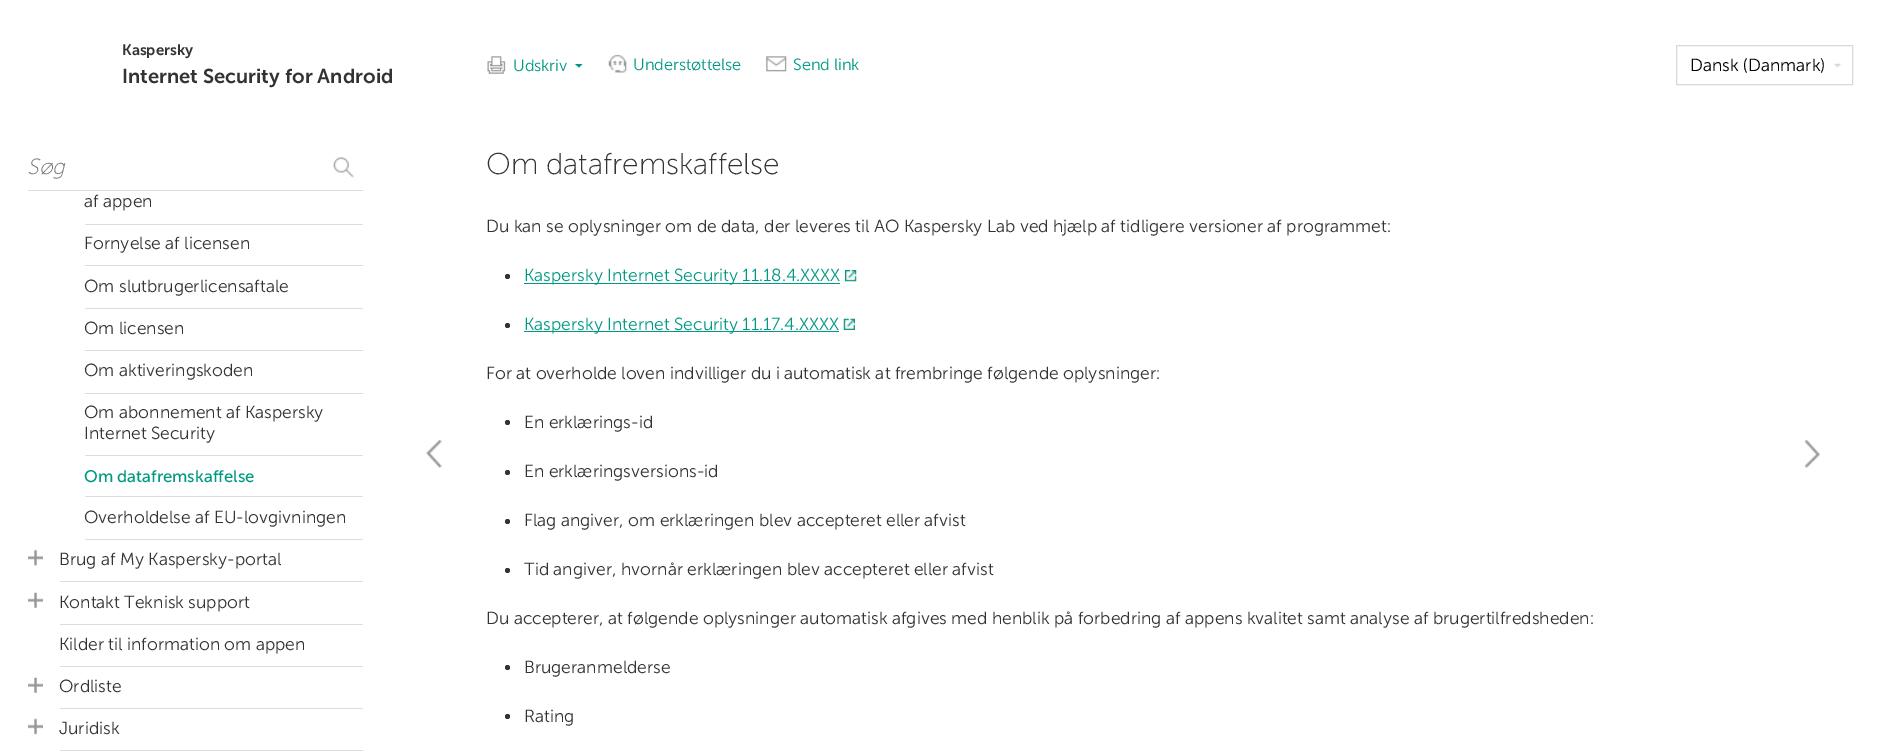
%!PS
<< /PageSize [1878 751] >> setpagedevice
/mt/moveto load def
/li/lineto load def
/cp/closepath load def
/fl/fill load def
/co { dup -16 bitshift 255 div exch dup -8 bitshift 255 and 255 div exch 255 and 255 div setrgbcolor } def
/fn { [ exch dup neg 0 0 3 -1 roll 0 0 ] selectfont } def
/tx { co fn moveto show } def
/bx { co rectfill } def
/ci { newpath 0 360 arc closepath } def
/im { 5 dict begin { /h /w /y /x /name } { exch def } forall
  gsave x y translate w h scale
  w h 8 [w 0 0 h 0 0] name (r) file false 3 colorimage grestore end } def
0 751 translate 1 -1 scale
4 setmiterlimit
0 0 1878 751 16#FFFFFF bx
(media/1.raw) 487 56 19 18 im
16#009982 co
575 64 mt 582.5 64 li 579 67.5 li cp fl
(media/2.raw) 608 54 19 19 im
(media/3.raw) 766 56 21 16 im
16#D8D8D8 co
1676.5 45.5 176 39 rectstroke
(media/4.raw) 1833 63 9 5 im
28 190 335 1 16#DADDDF bx
(media/5.raw) 333 157 21 21 im
85 224 278 1 16#DADDDF bx
85 265 278 1 16#DADDDF bx
85 308 278 1 16#DADDDF bx
85 350 278 1 16#DADDDF bx
85 393 278 1 16#DADDDF bx
85 455 278 1 16#DADDDF bx
85 496 278 1 16#DADDDF bx
85 539 278 1 16#DADDDF bx
(media/6.raw) 28 549 15 17 im
60 581 303 1 16#DADDDF bx
(media/7.raw) 28 592 15 16 im
60 624 303 1 16#DADDDF bx
60 666 303 1 16#DADDDF bx
(media/7.raw) 28 677 15 16 im
60 708 303 1 16#DADDDF bx
(media/8.raw) 28 718 15 17 im
60 750 303 1 16#DADDDF bx
(media/9.raw) 426 439 16 29 im
16#333333 co
507.5 276.5 2.5 ci fl
524 283 316 1 16#009982 bx
(media/10.raw) 845 270 12 12 im
16#333333 co
507.5 325.5 2.5 ci fl
524 331 315 1 16#009982 bx
(media/11.raw) 843 318 12 12 im
16#333333 co
507.5 422.5 2.5 ci fl
507.5 472.5 2.5 ci fl
507.5 521.5 2.5 ci fl
507.5 570.5 2.5 ci fl
507.5 667.5 2.5 ci fl
507.5 716.5 2.5 ci fl
(media/12.raw) 1804 439 16 29 im
(Kaspersky) 122 55 /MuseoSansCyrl-SemiBold 15 16#333333 tx
(Internet Security for Android) 122 83 /MuseoSansCyrl-SemiBold 20 16#333333 tx
(Udskriv) 513 71 /MuseoSansCyrl-Light 16.25 16#009982 tx
(Understøttelse) 633 70 /MuseoSansCyrl-Light 16.25 16#009982 tx
(Send link) 793 70 /MuseoSansCyrl-Light 16.25 16#009982 tx
(Dansk \(Danmark\)) 1690 71 /MuseoSansCyrl-Light 17.5 16#000000 tx
(Søg) 27 174 /MuseoSansCyrl-ExtraLightItalic 22 16#757575 tx
(af appen) 84 207 /MuseoSansCyrl-Light 17.5 16#333333 tx
(Fornyelse af licensen) 84 249 /MuseoSansCyrl-Light 17.5 16#333333 tx
(Om slutbrugerlicensaftale) 84 292 /MuseoSansCyrl-Light 17.5 16#333333 tx
(Om licensen) 84 334 /MuseoSansCyrl-Light 17.5 16#333333 tx
(Om aktiveringskoden) 84 376 /MuseoSansCyrl-Light 17.5 16#333333 tx
(Om abonnement af Kaspersky) 84 418 /MuseoSansCyrl-Light 17.5 16#333333 tx
(Internet Security) 84 439 /MuseoSansCyrl-Light 17.5 16#333333 tx
(Om datafremskaffelse) 84 482 /MuseoSansCyrl-Regular 16.75 16#009982 tx
(Overholdelse af EU-lovgivningen) 84 523 /MuseoSansCyrl-Light 17.5 16#333333 tx
(Brug af My Kaspersky-portal) 59 565 /MuseoSansCyrl-Light 17.5 16#333333 tx
(Kontakt Teknisk support) 59 608 /MuseoSansCyrl-Light 17.5 16#333333 tx
(Kilder til information om appen) 59 650 /MuseoSansCyrl-Light 17.5 16#333333 tx
(Ordliste) 59 692 /MuseoSansCyrl-Light 17.5 16#333333 tx
(Juridisk) 59 734 /MuseoSansCyrl-Light 17.5 16#333333 tx
(Om datafremskaffelse) 486 174 /MuseoSansCyrl-ExtraLight 30 16#333333 tx
(Du kan se oplysninger om de data, der leveres til AO Kaspersky Lab ved hjælp af tidligere versioner af programmet:) 486 232 /MuseoSansCyrl-Light 17.5 16#333333 tx
(Kaspersky Internet Security 11.18.4.XXXX) 524 281 /MuseoSansCyrl-Light 17.5 16#009982 tx
(Kaspersky Internet Security 11.17.4.XXXX) 524 330 /MuseoSansCyrl-Light 17.5 16#009982 tx
(For at overholde loven indvilliger du i automatisk at frembringe følgende oplysninger:) 486 379 /MuseoSansCyrl-Light 17.5 16#333333 tx
(En erklærings-id) 524 428 /MuseoSansCyrl-Light 17.5 16#333333 tx
(En erklæringsversions-id) 524 477 /MuseoSansCyrl-Light 17.5 16#333333 tx
(Flag angiver, om erklæringen blev accepteret eller afvist) 524 526 /MuseoSansCyrl-Light 17.5 16#333333 tx
(Tid angiver, hvornår erklæringen blev accepteret eller afvist) 524 575 /MuseoSansCyrl-Light 17.5 16#333333 tx
(Du accepterer, at følgende oplysninger automatisk afgives med henblik på forbedring af appens kvalitet samt analyse af brugertilfredsheden:) 486 624 /MuseoSansCyrl-Light 17.5 16#333333 tx
(Brugeranmelderse) 524 673 /MuseoSansCyrl-Light 17.5 16#333333 tx
(Rating) 524 722 /MuseoSansCyrl-Light 17.5 16#333333 tx
showpage
